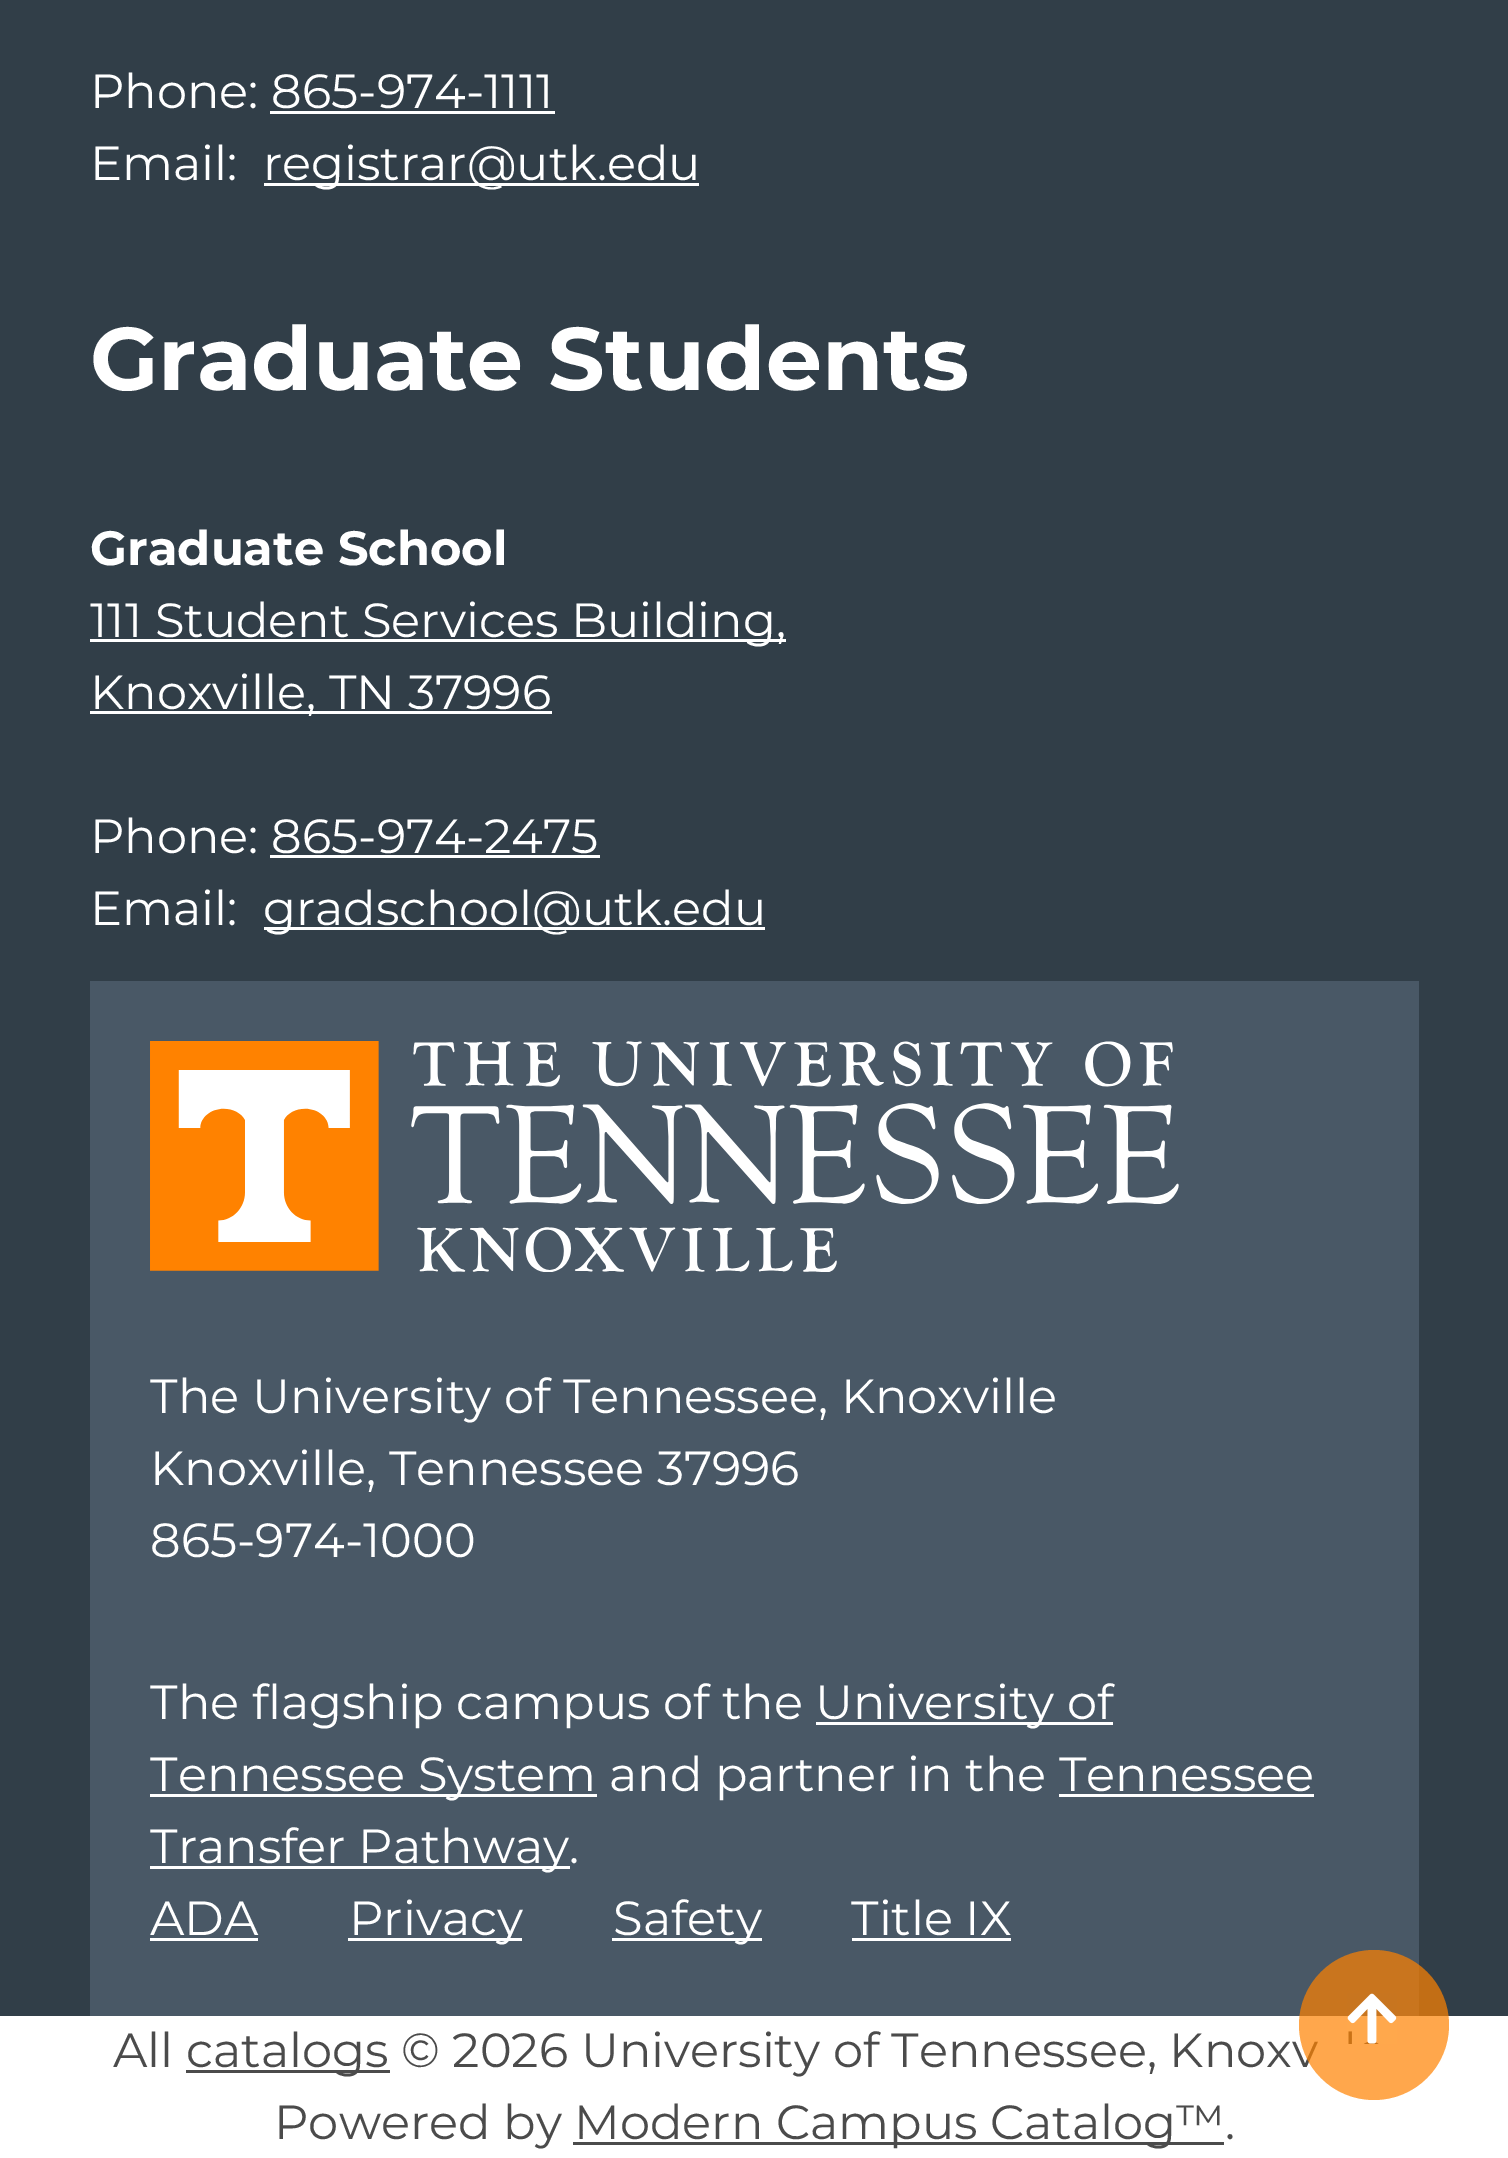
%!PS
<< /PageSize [1508 2158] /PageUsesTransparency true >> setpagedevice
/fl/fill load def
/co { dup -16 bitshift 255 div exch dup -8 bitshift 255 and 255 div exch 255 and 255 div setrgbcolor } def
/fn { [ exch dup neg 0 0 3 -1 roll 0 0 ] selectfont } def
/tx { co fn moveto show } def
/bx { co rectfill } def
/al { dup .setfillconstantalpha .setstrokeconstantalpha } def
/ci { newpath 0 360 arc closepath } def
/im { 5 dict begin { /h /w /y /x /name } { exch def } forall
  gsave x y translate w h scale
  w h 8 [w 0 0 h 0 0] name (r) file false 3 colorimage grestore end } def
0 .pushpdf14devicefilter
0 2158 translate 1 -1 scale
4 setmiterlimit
0 0 1508 2158 16#FFFFFF bx
0 0 1508 2016 16#313E48 bx
270 111 285 3 16#FFFFFF bx
264 183 435 3 16#FFFFFF bx
90 639 696 3 16#FFFFFF bx
90 711 462 3 16#FFFFFF bx
270 855 330 3 16#FFFFFF bx
264 927 501 3 16#FFFFFF bx
90 981 1329 1035 16#495866 bx
(media/1.raw) 150 1041 1029 231 im
816 1722 297 3 16#FFFFFF bx
150 1794 447 3 16#FFFFFF bx
1059 1794 255 3 16#FFFFFF bx
150 1866 420 3 16#FFFFFF bx
150 1938 108 3 16#FFFFFF bx
348 1938 174 3 16#FFFFFF bx
612 1938 150 3 16#FFFFFF bx
852 1938 159 3 16#FFFFFF bx
186 2070 204 3 16#4B4B4B bx
573 2142 651 3 16#4B4B4B bx
(Phone: 865-974-1111) 90 108 /Montserrat-Regular 48 16#FFFFFF tx
(Email:) 90 180 /Montserrat-Regular 48 16#FFFFFF tx
(registrar@utk.edu) 263 180 /Montserrat-Regular 48 16#FFFFFF tx
(Graduate Students) 90 390 /Montserrat-Bold 88.75 16#FFFFFF tx
(Graduate School) 90 565 /Montserrat-Bold 48 16#FFFFFF tx
(111 Student Services Building,) 90 637 /Montserrat-Regular 48 16#FFFFFF tx
(Knoxville, TN 37996) 90 709 /Montserrat-Regular 48 16#FFFFFF tx
(Phone: 865-974-2475) 90 853 /Montserrat-Regular 48 16#FFFFFF tx
(Email:) 90 925 /Montserrat-Regular 48 16#FFFFFF tx
(gradschool@utk.edu) 263 925 /Montserrat-Regular 48 16#FFFFFF tx
(The University of Tennessee, Knoxville) 150 1413 /Montserrat-Regular 48 16#FFFFFF tx
(Knoxville, Tennessee 37996) 150 1485 /Montserrat-Regular 48 16#FFFFFF tx
(865-974-1000) 150 1557 /Montserrat-Regular 48 16#FFFFFF tx
(The flagship campus of the) 150 1719 /Montserrat-Regular 48 16#FFFFFF tx
(University of) 815 1719 /Montserrat-Regular 48 16#FFFFFF tx
(Tennessee System and partner in the Tennessee) 150 1791 /Montserrat-Regular 48 16#FFFFFF tx
(Transfer Pathway.) 150 1863 /Montserrat-Regular 48 16#FFFFFF tx
(ADA) 150 1935 /Montserrat-Regular 48 16#FFFFFF tx
(Privacy) 349 1935 /Montserrat-Regular 48 16#FFFFFF tx
(Safety) 613 1935 /Montserrat-Regular 48 16#FFFFFF tx
(Title IX) 851 1935 /Montserrat-Regular 48 16#FFFFFF tx
(All) 113 2067 /Montserrat-Regular 48 16#4B4B4B tx
(catalogs © 2026 University of Tennessee, Knoxv) 186 2067 /Montserrat-Regular 48 16#4B4B4B tx
(Powered by) 274 2139 /Montserrat-Regular 48 16#4B4B4B tx
(Modern Campus Catalog™.) 574 2139 /Montserrat-Regular 48 16#4B4B4B tx
0.7 al
16#FF8200 co
1374 2025 75 ci fl
1 al
(media/2.raw) 1347 1993 50 51 im
.poppdf14devicefilter showpage
